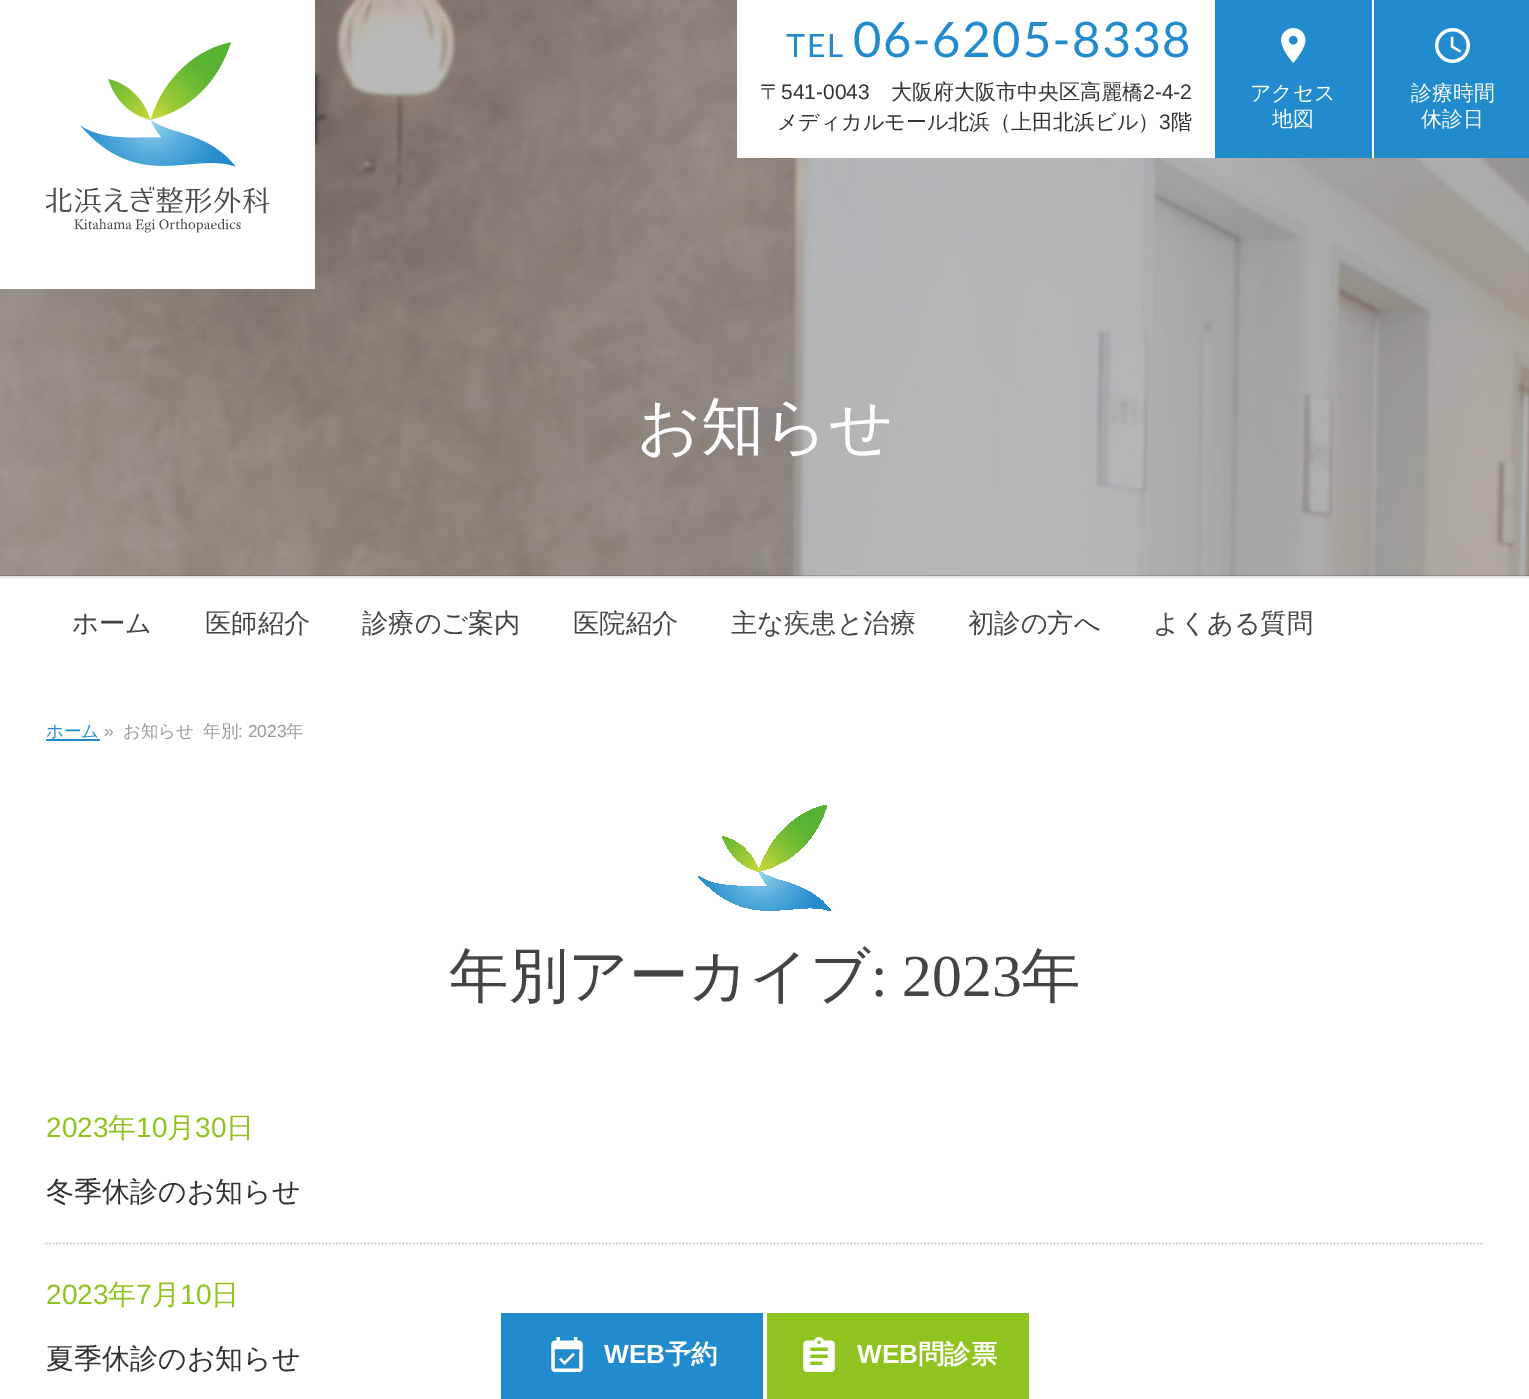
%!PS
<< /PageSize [1529 1399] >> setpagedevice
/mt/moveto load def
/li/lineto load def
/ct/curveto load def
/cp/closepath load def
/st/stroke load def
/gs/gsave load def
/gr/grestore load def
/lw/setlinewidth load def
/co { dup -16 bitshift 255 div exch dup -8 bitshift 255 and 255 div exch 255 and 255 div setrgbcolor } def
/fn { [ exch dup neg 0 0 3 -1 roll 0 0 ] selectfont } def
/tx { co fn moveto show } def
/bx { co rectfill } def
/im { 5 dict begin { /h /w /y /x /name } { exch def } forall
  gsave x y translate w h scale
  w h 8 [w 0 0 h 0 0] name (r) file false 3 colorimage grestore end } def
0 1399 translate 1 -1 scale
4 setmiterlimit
0 0 1529 1399 16#FFFFFF bx
(media/4.raw) 0 0 1529 576 im
0 0 315 289 16#FFFFFF bx
(media/1.raw) 46 42 224 191 im
737 0 478 158 16#FFFFFF bx
1372 0 2 158 16#FFFFFF bx
1215 0 157 158 16#218BCD bx
(media/2.raw) 1281 28 25 35 im
1374 0 155 158 16#218BCD bx
(media/3.raw) 1435 28 35 35 im
0 576 1529 2 16#E5E5E5 bx
46 739 54 2 16#218BCD bx
gs 831 911 mt 798 866 735 901 698 876 ct 750 934 794 898 831 911 ct cp clip newpath 761 872 translate 70 70 scale
<< /ShadingType 3 /ColorSpace /DeviceRGB /Coords [0 0 0 0 0 1] /Extend [true true] /Function << /FunctionType 3 /Domain [0 1] /Functions [<< /FunctionType 2 /Domain [0 1] /C0 [.576 .827 .929] /C1 [.533 .8 .918] /N 1 >> << /FunctionType 2 /Domain [0 1] /C0 [.533 .8 .918] /C1 [.361 .69 .867] /N 1 >> << /FunctionType 2 /Domain [0 1] /C0 [.361 .69 .867] /C1 [.235 .612 .831] /N 1 >> << /FunctionType 2 /Domain [0 1] /C0 [.235 .612 .831] /C1 [.157 .561 .812] /N 1 >> << /FunctionType 2 /Domain [0 1] /C0 [.157 .561 .812] /C1 [.129 .545 .804] /N 1 >>] /Bounds [.07 .36 .63 .85] /Encode [0 1 0 1 0 1 0 1 0 1] >> >> shfill gr
gs 789 899 mt 774 897 765 885 759 871 ct 776 884 809 881 831 911 ct clip newpath 761 872 translate 70 70 scale
<< /ShadingType 3 /ColorSpace /DeviceRGB /Coords [0 0 0 0 0 1] /Extend [true true] /Function << /FunctionType 3 /Domain [0 1] /Functions [<< /FunctionType 2 /Domain [0 1] /C0 [.576 .827 .929] /C1 [.533 .8 .918] /N 1 >> << /FunctionType 2 /Domain [0 1] /C0 [.533 .8 .918] /C1 [.361 .69 .867] /N 1 >> << /FunctionType 2 /Domain [0 1] /C0 [.361 .69 .867] /C1 [.235 .612 .831] /N 1 >> << /FunctionType 2 /Domain [0 1] /C0 [.235 .612 .831] /C1 [.157 .561 .812] /N 1 >> << /FunctionType 2 /Domain [0 1] /C0 [.157 .561 .812] /C1 [.129 .545 .804] /N 1 >>] /Bounds [.07 .36 .63 .85] /Encode [0 1 0 1 0 1 0 1 0 1] >> >> shfill gr
gs 759 871 mt 770 834 800 810 827 805 ct 817 838 794 863 759 871 ct cp clip newpath 761 872 translate 70 70 scale
<< /ShadingType 3 /ColorSpace /DeviceRGB /Coords [0 0 0 0 0 1] /Extend [true true] /Function << /FunctionType 3 /Domain [0 1] /Functions [<< /FunctionType 2 /Domain [0 1] /C0 [.8 .859 .224] /C1 [.6 .788 .212] /N 1 >> << /FunctionType 2 /Domain [0 1] /C0 [.6 .788 .212] /C1 [.455 .741 .204] /N 1 >> << /FunctionType 2 /Domain [0 1] /C0 [.455 .741 .204] /C1 [.365 .71 .196] /N 1 >> << /FunctionType 2 /Domain [0 1] /C0 [.365 .71 .196] /C1 [.333 .698 .196] /N 1 >>] /Bounds [.33 .62 .85] /Encode [0 1 0 1 0 1 0 1] >> >> shfill gr
gs 759 871.5 mt 753 851.5 737 839.5 722.5 836.5 ct 728 853.5 740.5 867 759 871.5 ct cp clip newpath 761 872 translate 70 70 scale
<< /ShadingType 3 /ColorSpace /DeviceRGB /Coords [0 0 0 0 0 1] /Extend [true true] /Function << /FunctionType 3 /Domain [0 1] /Functions [<< /FunctionType 2 /Domain [0 1] /C0 [.8 .859 .224] /C1 [.6 .788 .212] /N 1 >> << /FunctionType 2 /Domain [0 1] /C0 [.6 .788 .212] /C1 [.455 .741 .204] /N 1 >> << /FunctionType 2 /Domain [0 1] /C0 [.455 .741 .204] /C1 [.365 .71 .196] /N 1 >> << /FunctionType 2 /Domain [0 1] /C0 [.365 .71 .196] /C1 [.333 .698 .196] /N 1 >>] /Bounds [.33 .62 .85] /Encode [0 1 0 1 0 1 0 1] >> >> shfill gr
16#CCCCCC co
1.8 lw
[1.75 1.75] 0 setdash
45.5 1243.5 mt 1484 1243.5 li st
501 1313 262 86 16#218BCD bx
(media/5.raw) 551 1337 32 35 im
767 1313 262 86 16#8FC31F bx
(media/6.raw) 803 1337 32 35 im
/Lato-Regular 32 fn
16#218BCD co
786 57 mt 1.75 0 (TEL) ashow
/Lato-Regular 49 fn
853 57 mt 1.75 0 (06-6205-8338) ashow
(〒) 760 99 /WenQuanYiZenHei-Medium 21 16#333333 tx
(541-0043) 781 99 /LiberationSans-Regular 21 16#333333 tx
(大阪府大阪市中央区高麗橋) 891 99 /WenQuanYiZenHei-Medium 21 16#333333 tx
(2-4-2) 1143 99 /LiberationSans-Regular 21 16#333333 tx
(メディカルモール北浜（上田北浜ビル）) 777 129 /WenQuanYiZenHei-Medium 21 16#333333 tx
(3) 1159 129 /LiberationSans-Regular 21 16#333333 tx
(階) 1171 129 /WenQuanYiZenHei-Medium 21 16#333333 tx
(アクセス) 1250 100 /WenQuanYiZenHei-Medium 21 16#FFFFFF tx
(地図) 1272 126 /WenQuanYiZenHei-Medium 21 16#FFFFFF tx
(診療時間) 1411 100 /WenQuanYiZenHei-Medium 21 16#FFFFFF tx
(休診日) 1421 126 /WenQuanYiZenHei-Medium 21 16#FFFFFF tx
(お知らせ) 637 448 /WenQuanYiZenHei-Medium 63 16#FFFFFF tx
(ホーム) 72 632 /WenQuanYiZenHei-Medium 26.25 16#444444 tx
(医師紹介) 205 632 /WenQuanYiZenHei-Medium 26.25 16#444444 tx
(診療のご案内) 362 632 /WenQuanYiZenHei-Medium 26.25 16#444444 tx
(医院紹介) 573 632 /WenQuanYiZenHei-Medium 26.25 16#444444 tx
(主な疾患と治療) 731 632 /WenQuanYiZenHei-Medium 26.25 16#444444 tx
(初診の方へ) 968 632 /WenQuanYiZenHei-Medium 26.25 16#444444 tx
(よくある質問) 1153 632 /WenQuanYiZenHei-Medium 26.25 16#444444 tx
(ホーム) 46 737 /WenQuanYiZenHei-Medium 17.5 16#218BCD tx
(») 104 737 /LiberationSans-Regular 17.5 16#999999 tx
(お知らせ) 123 737 /WenQuanYiZenHei-Medium 17.5 16#999999 tx
(年別) 203 737 /WenQuanYiZenHei-Medium 17.5 16#999999 tx
(: 2023) 238 737 /LiberationSans-Regular 17.5 16#999999 tx
(年) 286 737 /WenQuanYiZenHei-Medium 17.5 16#999999 tx
(年別アーカイブ) 449 996 /WenQuanYiZenHei-Medium 59.5 16#444444 tx
(: 2023) 871 996 /LiberationSerif-Regular 59.5 16#444444 tx
(年) 1021 996 /WenQuanYiZenHei-Medium 59.5 16#444444 tx
(2023) 46 1137 /LiberationSans-Regular 28 16#8FC31F tx
(年) 108 1137 /WenQuanYiZenHei-Medium 28 16#8FC31F tx
(10) 136 1137 /LiberationSans-Regular 28 16#8FC31F tx
(月) 167 1137 /WenQuanYiZenHei-Medium 28 16#8FC31F tx
(30) 195 1137 /LiberationSans-Regular 28 16#8FC31F tx
(日) 226 1137 /WenQuanYiZenHei-Medium 28 16#8FC31F tx
(冬季休診のお知らせ) 46 1201 /WenQuanYiZenHei-Medium 28 16#333333 tx
(2023) 46 1304 /LiberationSans-Regular 28 16#8FC31F tx
(年) 108 1304 /WenQuanYiZenHei-Medium 28 16#8FC31F tx
(7) 136 1304 /LiberationSans-Regular 28 16#8FC31F tx
(月) 152 1304 /WenQuanYiZenHei-Medium 28 16#8FC31F tx
(10) 180 1304 /LiberationSans-Regular 28 16#8FC31F tx
(日) 211 1304 /WenQuanYiZenHei-Medium 28 16#8FC31F tx
(夏季休診のお知らせ) 46 1368 /WenQuanYiZenHei-Medium 28 16#333333 tx
(WEB) 604 1363 /LiberationSans-Bold 26.25 16#FFFFFF tx
(予約) 665 1363 /WenQuanYiZenHei-Bold 26.25 16#FFFFFF tx
(WEB) 857 1363 /LiberationSans-Bold 26.25 16#FFFFFF tx
(問診票) 918 1363 /WenQuanYiZenHei-Bold 26.25 16#FFFFFF tx
showpage
